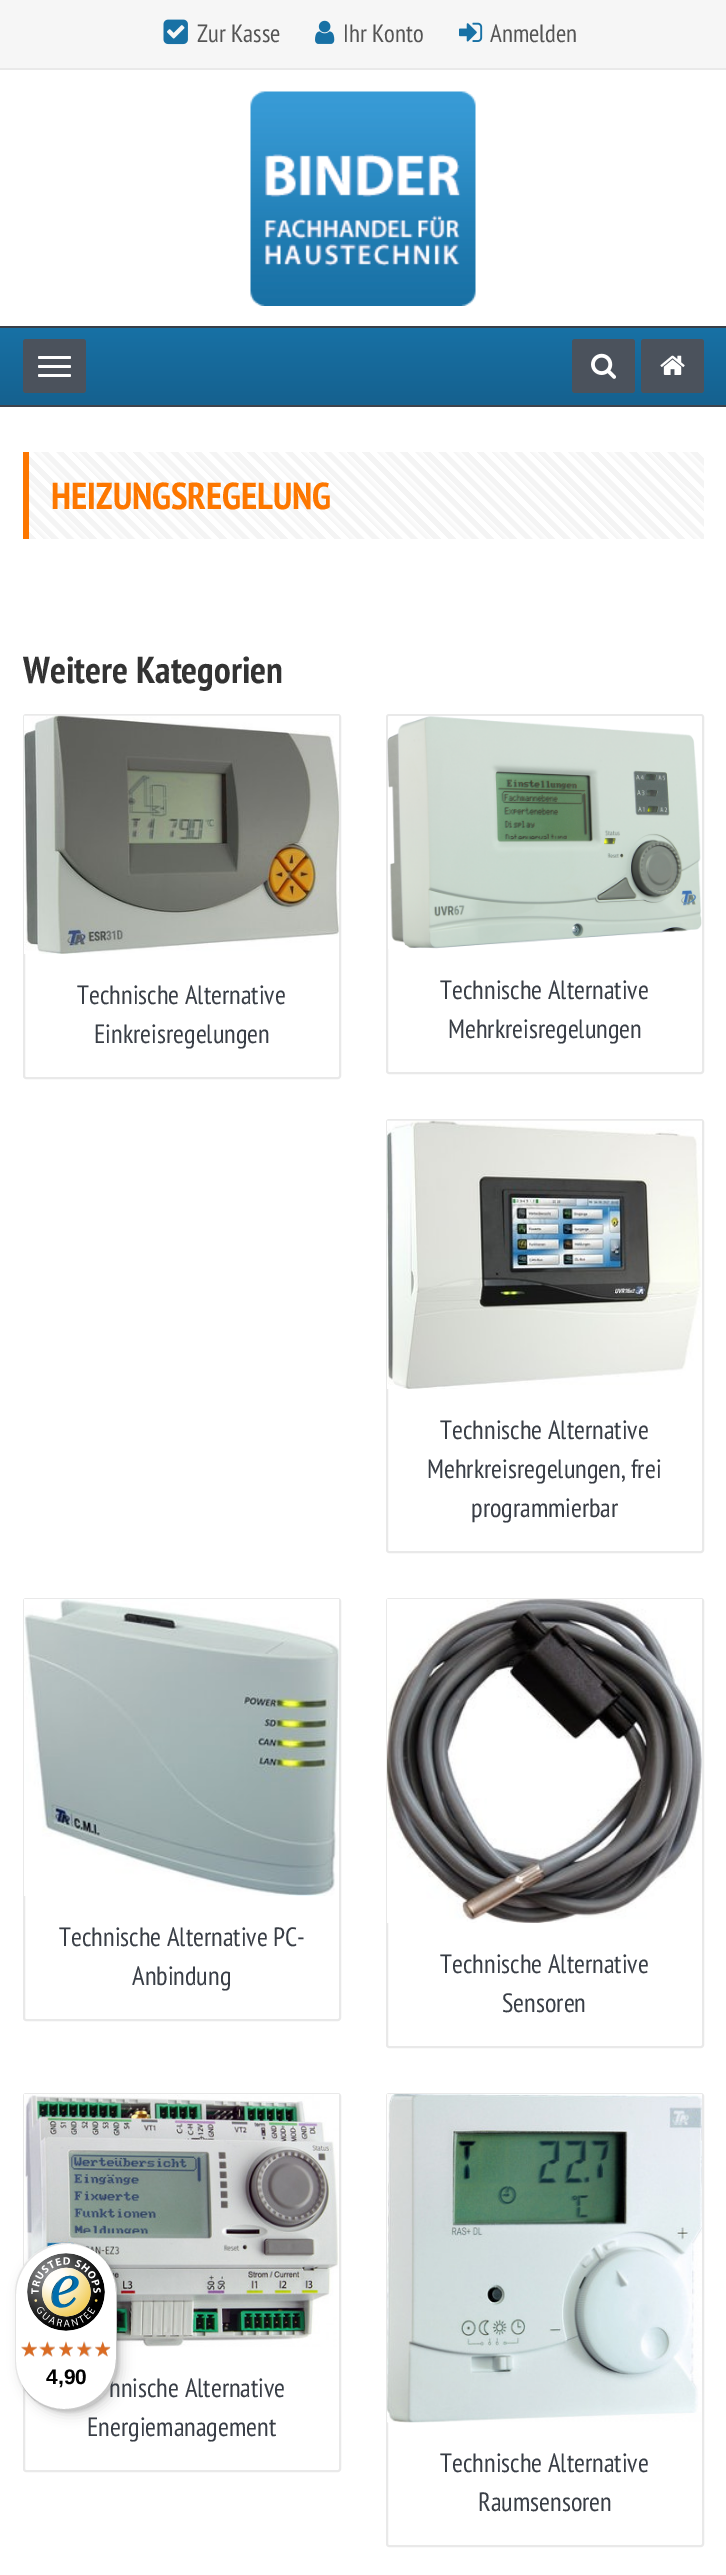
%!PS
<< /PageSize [726 2575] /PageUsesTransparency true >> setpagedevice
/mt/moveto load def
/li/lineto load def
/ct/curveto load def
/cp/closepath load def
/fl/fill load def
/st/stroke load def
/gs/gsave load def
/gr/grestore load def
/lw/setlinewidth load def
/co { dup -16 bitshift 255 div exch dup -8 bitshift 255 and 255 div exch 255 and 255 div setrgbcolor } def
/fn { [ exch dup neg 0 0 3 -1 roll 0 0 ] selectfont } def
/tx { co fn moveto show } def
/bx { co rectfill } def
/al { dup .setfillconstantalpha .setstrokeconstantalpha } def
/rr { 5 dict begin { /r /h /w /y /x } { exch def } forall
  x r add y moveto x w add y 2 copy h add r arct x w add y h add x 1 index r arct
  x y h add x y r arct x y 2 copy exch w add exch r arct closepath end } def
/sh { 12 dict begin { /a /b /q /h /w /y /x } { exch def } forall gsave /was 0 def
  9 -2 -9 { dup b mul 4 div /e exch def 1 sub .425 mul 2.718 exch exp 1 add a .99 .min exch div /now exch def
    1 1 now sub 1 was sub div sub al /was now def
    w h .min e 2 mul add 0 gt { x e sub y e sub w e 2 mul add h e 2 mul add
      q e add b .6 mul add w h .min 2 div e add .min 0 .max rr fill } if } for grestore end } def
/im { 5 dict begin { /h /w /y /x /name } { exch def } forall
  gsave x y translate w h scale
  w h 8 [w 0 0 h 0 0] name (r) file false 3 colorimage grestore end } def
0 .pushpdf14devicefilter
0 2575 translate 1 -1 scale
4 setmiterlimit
0 0 726 2575 16#FFFFFF bx
0 0 726 68 16#F6F6F6 bx
0 68 726 2 16#E9E9E9 bx
(media/1.raw) 163 19 25 26 im
(media/2.raw) 315 20 20 24 im
(media/3.raw) 459 22 24 20 im
(media/4.raw) 250 91 226 215 im
gs 0 328 mt 726 328 li 726 405 li 0 405 li cp clip newpath
<< /ShadingType 2 /ColorSpace /DeviceRGB /Coords [363 327 363 407] /Extend [true true] /Function << /FunctionType 2 /Domain [0 1] /C0 [.094 .443 .647] /C1 [.082 .38 .557] /N 1 >> >> shfill gr
0 326 726 2 16#393E46 bx
0 405 726 2 16#3E434C bx
16#4B525C co
23 339 63 54 3 rr fl
16#FFFFFF co
38 356 33 3 1.5 rr fl
38 365 33 3 1.5 rr fl
38 374 33 3 1.5 rr fl
16#4B525C co
572 339 63 54 3 rr fl
(media/5.raw) 591 353 25 26 im
641 339 63 54 3 rr fl
(media/6.raw) 660 355 25 20 im
gs 29 452 mt 704 452 li 704 539 li 29 539 li cp clip newpath
<< /ShadingType 2 /ColorSpace /DeviceRGB /Coords [176 686 557 304] /Extend [true true] /Function << /FunctionType 3 /Domain [0 1] /Functions [<< /FunctionType 2 /Domain [0 1] /C0 [.957 .957 .957] /C1 [.957 .957 .957] /N 1 >> << /FunctionType 2 /Domain [0 1] /C0 [1 1 1] /C1 [1 1 1] /N 1 >> << /FunctionType 2 /Domain [0 1] /C0 [.957 .957 .957] /C1 [1 1 1] /N 1 >> << /FunctionType 2 /Domain [0 1] /C0 [.957 .957 .957] /C1 [.957 .957 .957] /N 1 >> << /FunctionType 2 /Domain [0 1] /C0 [1 1 1] /C1 [1 1 1] /N 1 >> << /FunctionType 2 /Domain [0 1] /C0 [.957 .957 .957] /C1 [.957 .957 .957] /N 1 >> << /FunctionType 2 /Domain [0 1] /C0 [1 1 1] /C1 [1 1 1] /N 1 >> << /FunctionType 2 /Domain [0 1] /C0 [.957 .957 .957] /C1 [1 1 1] /N 1 >> << /FunctionType 2 /Domain [0 1] /C0 [.957 .957 .957] /C1 [.957 .957 .957] /N 1 >> << /FunctionType 2 /Domain [0 1] /C0 [1 1 1] /C1 [1 1 1] /N 1 >> << /FunctionType 2 /Domain [0 1] /C0 [.957 .957 .957] /C1 [.957 .957 .957] /N 1 >> << /FunctionType 2 /Domain [0 1] /C0 [1 1 1] /C1 [1 1 1] /N 1 >> << /FunctionType 2 /Domain [0 1] /C0 [.957 .957 .957] /C1 [1 1 1] /N 1 >> << /FunctionType 2 /Domain [0 1] /C0 [.957 .957 .957] /C1 [.957 .957 .957] /N 1 >> << /FunctionType 2 /Domain [0 1] /C0 [1 1 1] /C1 [1 1 1] /N 1 >> << /FunctionType 2 /Domain [0 1] /C0 [.957 .957 .957] /C1 [.957 .957 .957] /N 1 >> << /FunctionType 2 /Domain [0 1] /C0 [1 1 1] /C1 [1 1 1] /N 1 >> << /FunctionType 2 /Domain [0 1] /C0 [.957 .957 .957] /C1 [1 1 1] /N 1 >> << /FunctionType 2 /Domain [0 1] /C0 [.957 .957 .957] /C1 [.957 .957 .957] /N 1 >> << /FunctionType 2 /Domain [0 1] /C0 [1 1 1] /C1 [1 1 1] /N 1 >> << /FunctionType 2 /Domain [0 1] /C0 [.957 .957 .957] /C1 [.957 .957 .957] /N 1 >> << /FunctionType 2 /Domain [0 1] /C0 [1 1 1] /C1 [1 1 1] /N 1 >> << /FunctionType 2 /Domain [0 1] /C0 [.957 .957 .957] /C1 [1 1 1] /N 1 >> << /FunctionType 2 /Domain [0 1] /C0 [.957 .957 .957] /C1 [.957 .957 .957] /N 1 >> << /FunctionType 2 /Domain [0 1] /C0 [1 1 1] /C1 [1 1 1] /N 1 >> << /FunctionType 2 /Domain [0 1] /C0 [.957 .957 .957] /C1 [.957 .957 .957] /N 1 >> << /FunctionType 2 /Domain [0 1] /C0 [1 1 1] /C1 [1 1 1] /N 1 >> << /FunctionType 2 /Domain [0 1] /C0 [.957 .957 .957] /C1 [1 1 1] /N 1 >> << /FunctionType 2 /Domain [0 1] /C0 [.957 .957 .957] /C1 [.957 .957 .957] /N 1 >> << /FunctionType 2 /Domain [0 1] /C0 [1 1 1] /C1 [1 1 1] /N 1 >> << /FunctionType 2 /Domain [0 1] /C0 [.957 .957 .957] /C1 [.957 .957 .957] /N 1 >> << /FunctionType 2 /Domain [0 1] /C0 [1 1 1] /C1 [1 1 1] /N 1 >> << /FunctionType 2 /Domain [0 1] /C0 [.957 .957 .957] /C1 [1 1 1] /N 1 >> << /FunctionType 2 /Domain [0 1] /C0 [.957 .957 .957] /C1 [.957 .957 .957] /N 1 >> << /FunctionType 2 /Domain [0 1] /C0 [1 1 1] /C1 [1 1 1] /N 1 >> << /FunctionType 2 /Domain [0 1] /C0 [.957 .957 .957] /C1 [.957 .957 .957] /N 1 >> << /FunctionType 2 /Domain [0 1] /C0 [1 1 1] /C1 [1 1 1] /N 1 >> << /FunctionType 2 /Domain [0 1] /C0 [.957 .957 .957] /C1 [1 1 1] /N 1 >> << /FunctionType 2 /Domain [0 1] /C0 [.957 .957 .957] /C1 [.957 .957 .957] /N 1 >> << /FunctionType 2 /Domain [0 1] /C0 [1 1 1] /C1 [1 1 1] /N 1 >> << /FunctionType 2 /Domain [0 1] /C0 [.957 .957 .957] /C1 [.957 .957 .957] /N 1 >> << /FunctionType 2 /Domain [0 1] /C0 [1 1 1] /C1 [1 1 1] /N 1 >> << /FunctionType 2 /Domain [0 1] /C0 [.957 .957 .957] /C1 [1 1 1] /N 1 >> << /FunctionType 2 /Domain [0 1] /C0 [.957 .957 .957] /C1 [.957 .957 .957] /N 1 >> << /FunctionType 2 /Domain [0 1] /C0 [1 1 1] /C1 [1 1 1] /N 1 >> << /FunctionType 2 /Domain [0 1] /C0 [.957 .957 .957] /C1 [.957 .957 .957] /N 1 >> << /FunctionType 2 /Domain [0 1] /C0 [1 1 1] /C1 [1 1 1] /N 1 >> << /FunctionType 2 /Domain [0 1] /C0 [.957 .957 .957] /C1 [1 1 1] /N 1 >> << /FunctionType 2 /Domain [0 1] /C0 [.957 .957 .957] /C1 [.957 .957 .957] /N 1 >> << /FunctionType 2 /Domain [0 1] /C0 [1 1 1] /C1 [1 1 1] /N 1 >> << /FunctionType 2 /Domain [0 1] /C0 [.957 .957 .957] /C1 [.957 .957 .957] /N 1 >> << /FunctionType 2 /Domain [0 1] /C0 [1 1 1] /C1 [1 1 1] /N 1 >> << /FunctionType 2 /Domain [0 1] /C0 [.957 .957 .957] /C1 [1 1 1] /N 1 >> << /FunctionType 2 /Domain [0 1] /C0 [.957 .957 .957] /C1 [.957 .957 .957] /N 1 >> << /FunctionType 2 /Domain [0 1] /C0 [1 1 1] /C1 [1 1 1] /N 1 >> << /FunctionType 2 /Domain [0 1] /C0 [.957 .957 .957] /C1 [.957 .957 .957] /N 1 >> << /FunctionType 2 /Domain [0 1] /C0 [1 1 1] /C1 [1 1 1] /N 1 >> << /FunctionType 2 /Domain [0 1] /C0 [.957 .957 .957] /C1 [1 1 1] /N 1 >> << /FunctionType 2 /Domain [0 1] /C0 [.957 .957 .957] /C1 [.957 .957 .957] /N 1 >> << /FunctionType 2 /Domain [0 1] /C0 [1 1 1] /C1 [1 1 1] /N 1 >> << /FunctionType 2 /Domain [0 1] /C0 [.957 .957 .957] /C1 [.957 .957 .957] /N 1 >> << /FunctionType 2 /Domain [0 1] /C0 [1 1 1] /C1 [1 1 1] /N 1 >> << /FunctionType 2 /Domain [0 1] /C0 [.957 .957 .957] /C1 [1 1 1] /N 1 >> << /FunctionType 2 /Domain [0 1] /C0 [.957 .957 .957] /C1 [.957 .957 .957] /N 1 >> << /FunctionType 2 /Domain [0 1] /C0 [1 1 1] /C1 [1 1 1] /N 1 >> << /FunctionType 2 /Domain [0 1] /C0 [.957 .957 .957] /C1 [.957 .957 .957] /N 1 >> << /FunctionType 2 /Domain [0 1] /C0 [1 1 1] /C1 [1 1 1] /N 1 >> << /FunctionType 2 /Domain [0 1] /C0 [.957 .957 .957] /C1 [1 1 1] /N 1 >> << /FunctionType 2 /Domain [0 1] /C0 [.957 .957 .957] /C1 [.957 .957 .957] /N 1 >> << /FunctionType 2 /Domain [0 1] /C0 [1 1 1] /C1 [1 1 1] /N 1 >> << /FunctionType 2 /Domain [0 1] /C0 [.957 .957 .957] /C1 [.957 .957 .957] /N 1 >> << /FunctionType 2 /Domain [0 1] /C0 [1 1 1] /C1 [1 1 1] /N 1 >> << /FunctionType 2 /Domain [0 1] /C0 [.957 .957 .957] /C1 [1 1 1] /N 1 >> << /FunctionType 2 /Domain [0 1] /C0 [.957 .957 .957] /C1 [.957 .957 .957] /N 1 >> << /FunctionType 2 /Domain [0 1] /C0 [1 1 1] /C1 [1 1 1] /N 1 >> << /FunctionType 2 /Domain [0 1] /C0 [.957 .957 .957] /C1 [.957 .957 .957] /N 1 >> << /FunctionType 2 /Domain [0 1] /C0 [1 1 1] /C1 [1 1 1] /N 1 >> << /FunctionType 2 /Domain [0 1] /C0 [.957 .957 .957] /C1 [1 1 1] /N 1 >> << /FunctionType 2 /Domain [0 1] /C0 [.957 .957 .957] /C1 [.957 .957 .957] /N 1 >> << /FunctionType 2 /Domain [0 1] /C0 [1 1 1] /C1 [1 1 1] /N 1 >> << /FunctionType 2 /Domain [0 1] /C0 [.957 .957 .957] /C1 [.957 .957 .957] /N 1 >> << /FunctionType 2 /Domain [0 1] /C0 [1 1 1] /C1 [1 1 1] /N 1 >> << /FunctionType 2 /Domain [0 1] /C0 [.957 .957 .957] /C1 [1 1 1] /N 1 >> << /FunctionType 2 /Domain [0 1] /C0 [.957 .957 .957] /C1 [.957 .957 .957] /N 1 >> << /FunctionType 2 /Domain [0 1] /C0 [1 1 1] /C1 [1 1 1] /N 1 >> << /FunctionType 2 /Domain [0 1] /C0 [.957 .957 .957] /C1 [.957 .957 .957] /N 1 >> << /FunctionType 2 /Domain [0 1] /C0 [1 1 1] /C1 [1 1 1] /N 1 >> << /FunctionType 2 /Domain [0 1] /C0 [.957 .957 .957] /C1 [1 1 1] /N 1 >> << /FunctionType 2 /Domain [0 1] /C0 [.957 .957 .957] /C1 [.957 .957 .957] /N 1 >> << /FunctionType 2 /Domain [0 1] /C0 [1 1 1] /C1 [1 1 1] /N 1 >> << /FunctionType 2 /Domain [0 1] /C0 [.957 .957 .957] /C1 [.957 .957 .957] /N 1 >> << /FunctionType 2 /Domain [0 1] /C0 [1 1 1] /C1 [1 1 1] /N 1 >> << /FunctionType 2 /Domain [0 1] /C0 [.957 .957 .957] /C1 [1 1 1] /N 1 >> << /FunctionType 2 /Domain [0 1] /C0 [.957 .957 .957] /C1 [.957 .957 .957] /N 1 >> << /FunctionType 2 /Domain [0 1] /C0 [1 1 1] /C1 [1 1 1] /N 1 >> << /FunctionType 2 /Domain [0 1] /C0 [.957 .957 .957] /C1 [.957 .957 .957] /N 1 >> << /FunctionType 2 /Domain [0 1] /C0 [1 1 1] /C1 [1 1 1] /N 1 >> << /FunctionType 2 /Domain [0 1] /C0 [.957 .957 .957] /C1 [1 1 1] /N 1 >> << /FunctionType 2 /Domain [0 1] /C0 [.957 .957 .957] /C1 [.957 .957 .957] /N 1 >> << /FunctionType 2 /Domain [0 1] /C0 [1 1 1] /C1 [1 1 1] /N 1 >>] /Bounds [.01 .02 .03 .04 .05 .06 .07 .08 .09 .1 .11 .12 .13 .14 .15 .16 .17 .18 .19 .2 .21 .22 .23 .24 .25 .26 .27 .28 .29 .3 .31 .32 .33 .34 .35 .36 .37 .38 .39 .4 .41 .42 .43 .44 .45 .46 .47 .48 .49 .5 .51 .52 .53 .54 .55 .56 .57 .58 .59 .6 .61 .62 .63 .64 .65 .66 .67 .68 .69 .7 .71 .72 .73 .74 .75 .76 .77 .78 .79 .8 .81 .82 .83 .84 .85 .86 .87 .88 .89 .9 .91 .92 .93 .94 .95 .96 .97 .98 .99] /Encode [0 1 0 1 0 1 0 1 0 1 0 1 0 1 0 1 0 1 0 1 0 1 0 1 0 1 0 1 0 1 0 1 0 1 0 1 0 1 0 1 0 1 0 1 0 1 0 1 0 1 0 1 0 1 0 1 0 1 0 1 0 1 0 1 0 1 0 1 0 1 0 1 0 1 0 1 0 1 0 1 0 1 0 1 0 1 0 1 0 1 0 1 0 1 0 1 0 1 0 1 0 1 0 1 0 1 0 1 0 1 0 1 0 1 0 1 0 1 0 1 0 1 0 1 0 1 0 1 0 1 0 1 0 1 0 1 0 1 0 1 0 1 0 1 0 1 0 1 0 1 0 1 0 1 0 1 0 1 0 1 0 1 0 1 0 1 0 1 0 1 0 1 0 1 0 1 0 1 0 1 0 1 0 1 0 1 0 1 0 1 0 1 0 1 0 1 0 1 0 1] >> >> shfill gr
23 452 6 87 16#FD7700 bx
16#E9E9E9 co
2 lw
24 715 316 363 2 rr st
(media/7.raw) 24 715 315 239 im
387 715 316 358 2 rr st
(media/8.raw) 387 716 315 233 im
387 1120 316 432 2 rr st
(media/9.raw) 387 1120 315 269 im
24 1599 316 421 2 rr st
(media/10.raw) 24 1599 315 297 im
387 1599 316 448 2 rr st
(media/11.raw) 387 1599 315 324 im
24 2094 316 377 2 rr st
(media/12.raw) 24 2094 315 254 im
387 2094 316 452 2 rr st
(media/13.raw) 387 2094 315 329 im
16#000000 co
20 2247 102 168 51 6 .15 sh
17 2244 102 168 51 1.5 .15 sh
(Zur Kasse) 197 42 /PTSansNarrow-Regular 24 16#555555 tx
(Ihr Konto) 343 42 /PTSansNarrow-Regular 24 16#555555 tx
(Anmelden) 490 42 /PTSansNarrow-Regular 24 16#555555 tx
(HEIZUNGSREGELUNG) 51 509 /PTSansNarrow-Bold 36 16#FD7700 tx
(Weitere Kategorien) 23 683 /PTSansNarrow-Bold 36 16#333333 tx
(Technische Alternative) 77 1004 /PTSansNarrow-Regular 25.5 16#393E46 tx
(Einkreisregelungen) 94 1043 /PTSansNarrow-Regular 25.5 16#393E46 tx
(Technische Alternative) 440 999 /PTSansNarrow-Regular 25.5 16#393E46 tx
(Mehrkreisregelungen) 448 1038 /PTSansNarrow-Regular 25.5 16#393E46 tx
(Technische Alternative) 440 1439 /PTSansNarrow-Regular 25.5 16#393E46 tx
(Mehrkreisregelungen, frei) 427 1478 /PTSansNarrow-Regular 25.5 16#393E46 tx
(programmierbar) 471 1517 /PTSansNarrow-Regular 25.5 16#393E46 tx
(Technische Alternative PC-) 59 1946 /PTSansNarrow-Regular 25.5 16#393E46 tx
(Anbindung) 132 1985 /PTSansNarrow-Regular 25.5 16#393E46 tx
(Technische Alternative) 440 1973 /PTSansNarrow-Regular 25.5 16#393E46 tx
(Sensoren) 502 2012 /PTSansNarrow-Regular 25.5 16#393E46 tx
(hnische Alternative) 109 2397 /PTSansNarrow-Regular 25.5 16#393E46 tx
(Energiemanagement) 87 2436 /PTSansNarrow-Regular 25.5 16#393E46 tx
(Technische Alternative) 440 2472 /PTSansNarrow-Regular 25.5 16#393E46 tx
(Raumsensoren) 478 2511 /PTSansNarrow-Regular 25.5 16#393E46 tx
16#FFFFFF co
15 2243 102 168 51 rr fl
0.1 al
16#000000 co
68 2244 mt 78 2244 86 2247 94 2251 ct 86 2246 76 2243 66 2243 ct 38 2243 15 2266 15 2294 ct 15 2360 li 15 2377 23 2392 36 2401 ct 24 2392 16 2377 16 2361 ct 16 2295 li 16 2267 39 2244 68 2244 ct cp fl
0.2 al
22 2385 mt 30 2401 47 2411 66 2411 ct 94 2411 117 2388 117 2360 ct 117 2294 li 117 2285 115 2276 110 2269 ct 114 2276 116 2284 116 2292 ct 116 2358 li 116 2386 93 2409 64 2409 ct 46 2409 30 2399 22 2385 ct cp fl
16#323232 co
27 2393 mt 37 2404 51 2411 66 2411 ct 94 2411 117 2388 117 2360 ct 117 2294 li 117 2282 113 2271 106 2262 ct 112 2271 116 2281 116 2293 ct 116 2359 li 116 2387 93 2410 65 2410 ct 50 2410 37 2404 27 2393 ct cp fl
0.3 al
16#FFFFFF co
27 2393 mt 37 2404 51 2411 66 2411 ct 94 2411 117 2388 117 2360 ct 117 2294 li 117 2279 110 2265 99 2255 ct 110 2265 116 2278 116 2293 ct 116 2359 li 116 2387 93 2410 65 2410 ct 50 2410 37 2404 27 2393 ct cp fl
1 al
(media/14.raw) 27 2253 78 78 im
(media/15.raw) 21 2342 16 14 im
(media/16.raw) 41 2342 14 15 im
(media/17.raw) 59 2342 14 14 im
(media/18.raw) 77 2341 16 16 im
(media/19.raw) 95 2342 16 14 im
(media/20.raw) 21 2341 16 16 im
(media/21.raw) 39 2341 16 16 im
(media/22.raw) 59 2341 14 16 im
(media/23.raw) 77 2341 14 16 im
(media/24.raw) 95 2341 15 16 im
(4,90) 46 2384 /LiberationSans-Bold 21 16#000000 tx
.poppdf14devicefilter showpage
